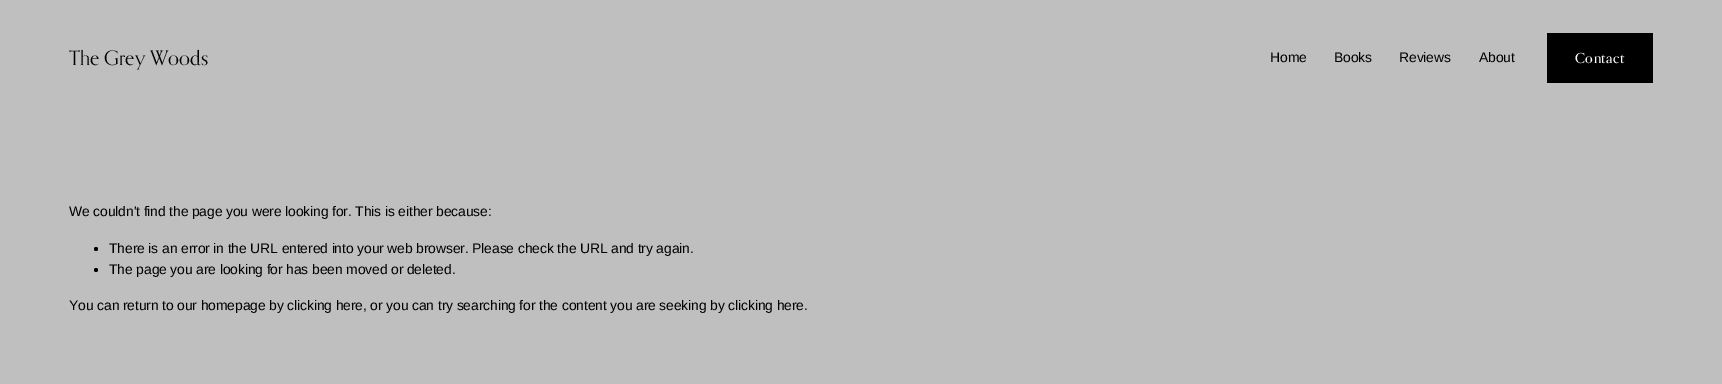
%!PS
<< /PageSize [1722 384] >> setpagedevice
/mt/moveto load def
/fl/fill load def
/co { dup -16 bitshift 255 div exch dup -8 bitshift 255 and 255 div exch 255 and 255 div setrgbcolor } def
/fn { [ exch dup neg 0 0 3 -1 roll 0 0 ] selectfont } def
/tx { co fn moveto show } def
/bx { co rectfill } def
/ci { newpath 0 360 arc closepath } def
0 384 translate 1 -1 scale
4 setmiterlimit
0 0 1722 384 16#BFBFBF bx
1547 33 106 50 16#000000 bx
96 249 2 ci fl
96 270 2 ci fl
(The Grey Woods) 69 65 /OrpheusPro-Regular 20 16#000000 tx
/LiberationSans-Regular 13.93 fn
1270 62 mt -.14 0 (Home) ashow
1334 62 mt -.14 0 (Books) ashow
1399 62 mt -.14 0 (Reviews) ashow
1479 62 mt -.14 0 (About) ashow
/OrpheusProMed-Medium 13.93 fn
16#FFFFFF co
1575 63 mt .5 0 (Contact) ashow
/LiberationSans-Regular 13.93 fn
16#000000 co
69 216 mt -.14 0 (We couldn't find the page you were looking for. This is either because:) ashow
109 253 mt -.14 0 (There is an error in the URL entered into your web browser. Please check the URL and try again.) ashow
109 274 mt -.14 0 (The page you are looking for has been moved or deleted.) ashow
69 310 mt -.14 0 (You can return to our homepage by clicking here, or you can try searching for the content you are seeking by clicking here.) ashow
showpage
